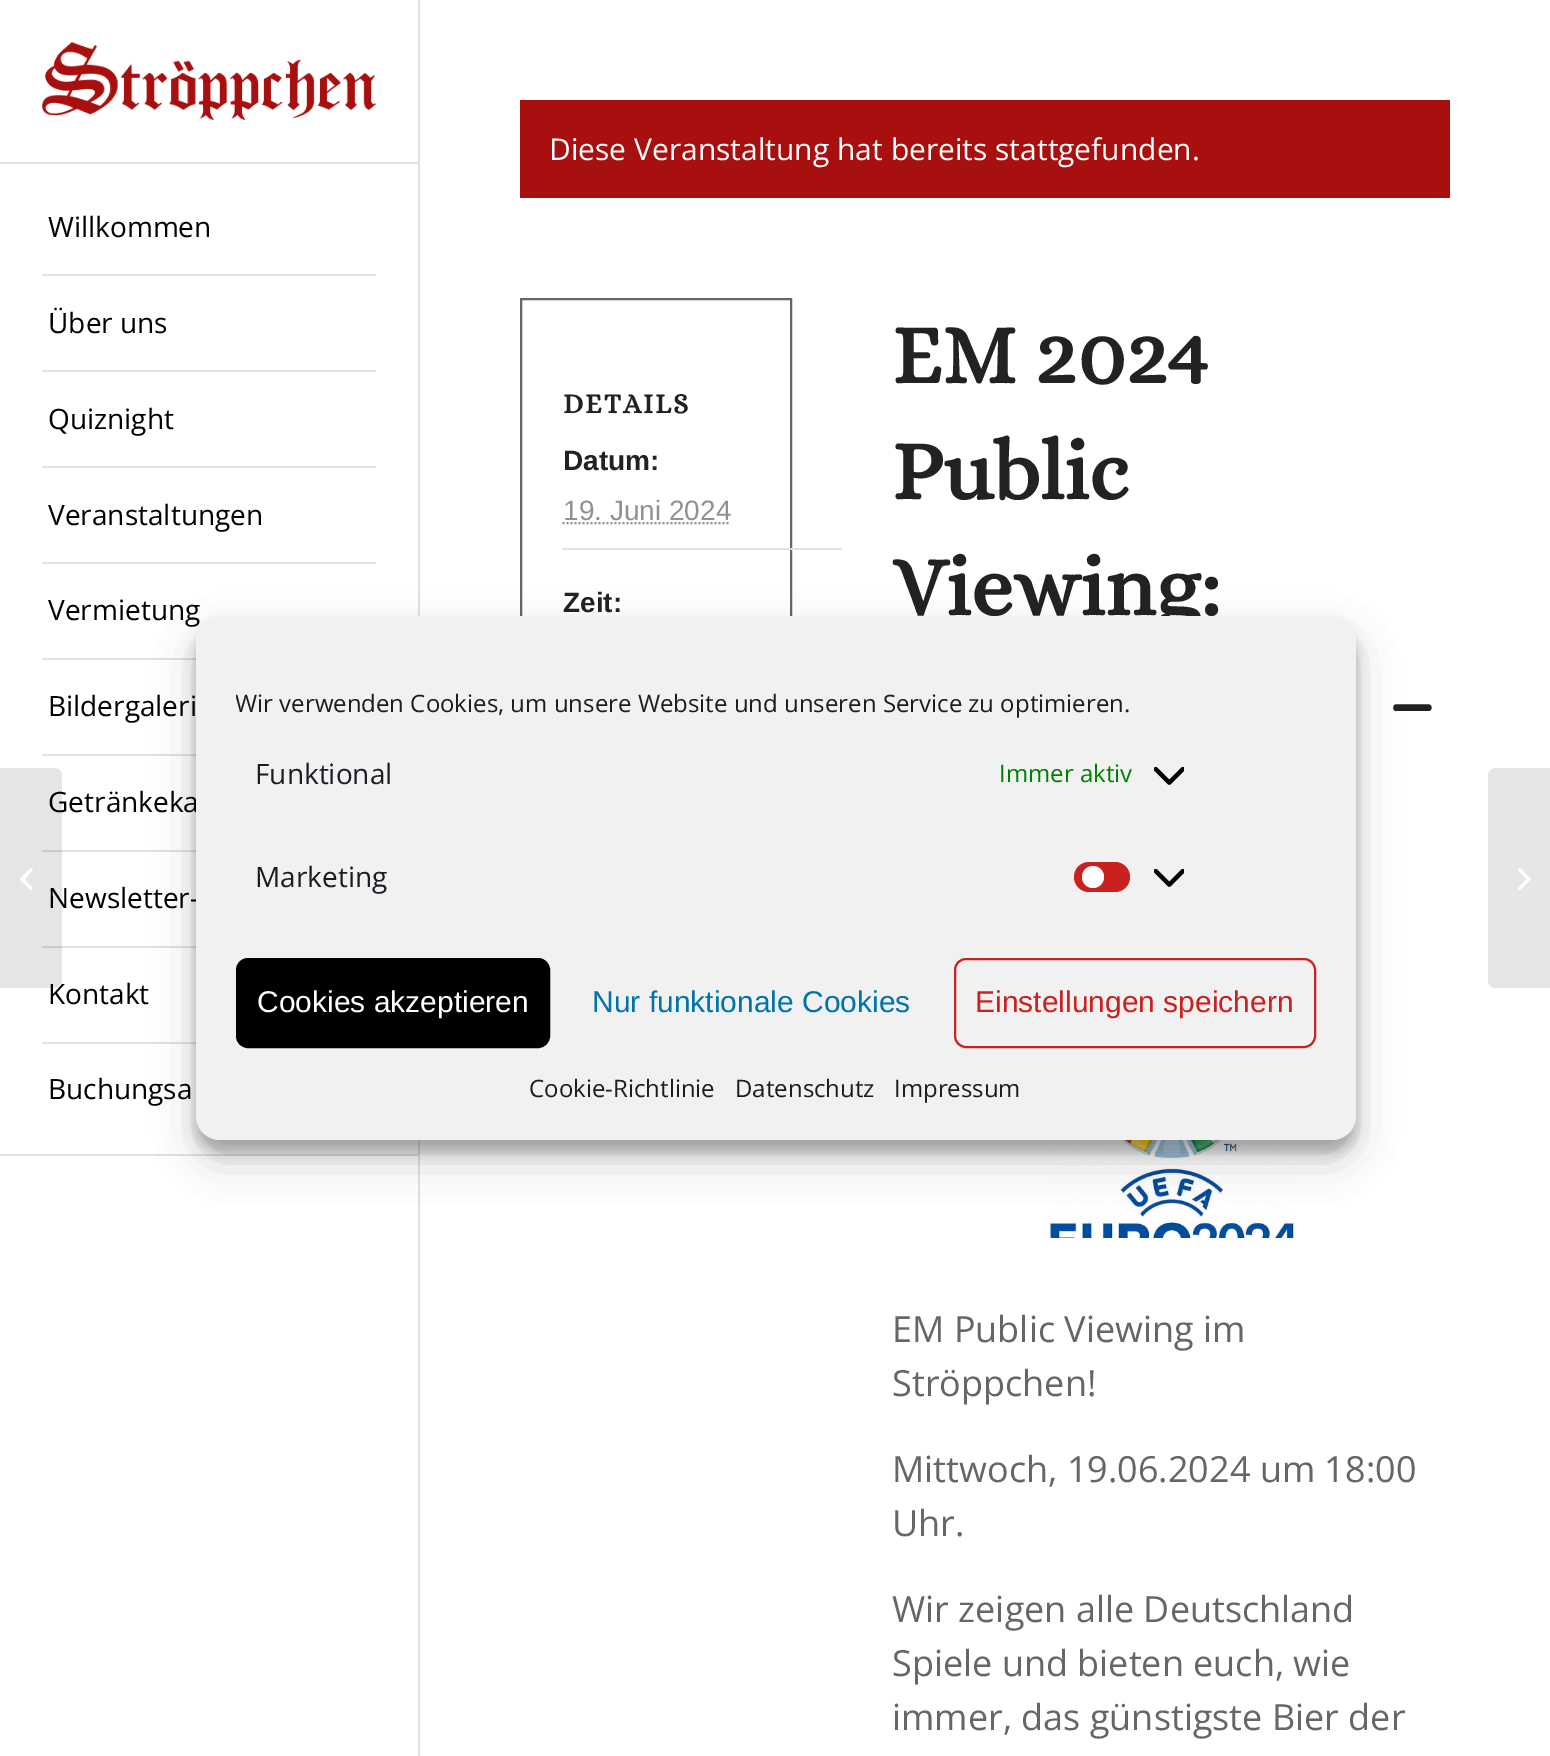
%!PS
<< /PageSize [1550 1756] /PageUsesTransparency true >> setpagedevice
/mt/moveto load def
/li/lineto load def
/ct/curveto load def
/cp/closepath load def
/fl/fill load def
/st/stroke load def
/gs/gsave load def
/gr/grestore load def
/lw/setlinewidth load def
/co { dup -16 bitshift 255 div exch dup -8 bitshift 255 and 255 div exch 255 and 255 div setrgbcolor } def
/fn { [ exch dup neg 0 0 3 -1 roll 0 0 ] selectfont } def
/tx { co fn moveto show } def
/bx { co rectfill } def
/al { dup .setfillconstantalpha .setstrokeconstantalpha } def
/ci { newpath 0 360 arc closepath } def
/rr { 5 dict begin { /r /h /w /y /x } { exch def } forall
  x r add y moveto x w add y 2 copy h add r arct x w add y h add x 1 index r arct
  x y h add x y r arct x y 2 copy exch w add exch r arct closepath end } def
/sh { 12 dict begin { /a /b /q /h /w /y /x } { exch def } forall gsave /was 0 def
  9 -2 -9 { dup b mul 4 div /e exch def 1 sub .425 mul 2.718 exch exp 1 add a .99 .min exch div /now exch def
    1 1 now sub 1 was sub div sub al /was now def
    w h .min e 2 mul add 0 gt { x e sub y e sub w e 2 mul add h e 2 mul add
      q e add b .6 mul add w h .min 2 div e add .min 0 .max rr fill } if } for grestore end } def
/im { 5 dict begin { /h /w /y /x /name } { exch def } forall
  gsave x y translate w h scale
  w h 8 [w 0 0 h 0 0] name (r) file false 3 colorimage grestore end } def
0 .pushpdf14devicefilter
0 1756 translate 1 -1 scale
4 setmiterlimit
0 0 1550 1756 16#FFFFFF bx
42 850 154 2 16#E1E1E1 bx
42 946 154 2 16#E1E1E1 bx
0.1 al
16#000000 co
0 768 mt 54 768 li 58.5 768 62 771.5 62 776 ct 62 980 li 62 984.5 58.5 988 54 988 ct 0 988 li cp fl
1 al
(media/1.raw) 20 868 13 22 im
0 1154 418 2 16#E1E1E1 bx
0 162 418 2 16#E1E1E1 bx
(media/2.raw) 42 42 334 78 im
42 274 334 2 16#E1E1E1 bx
42 370 334 2 16#E1E1E1 bx
42 466 334 2 16#E1E1E1 bx
42 562 334 2 16#E1E1E1 bx
42 658 154 2 16#E1E1E1 bx
42 754 154 2 16#E1E1E1 bx
42 1042 154 2 16#E1E1E1 bx
418 0 2 1756 16#E1E1E1 bx
520 100 930 98 16#A81010 bx
16#666666 co
2 lw
521 299 270 670 rectstroke
562 548 280 2 16#E1E1E1 bx
16#919191 co
[2 2] 0 setdash
562.5 523 mt 730.5 523 li st
(media/3.raw) 1049 1140 246 98 im
16#E6E6E6 co
1496 768 mt 1550 768 li 1550 988 li 1496 988 li 1491.5 988 1488 984.5 1488 980 ct 1488 776 li 1488 771.5 1491.5 768 1496 768 ct cp fl
(media/4.raw) 1518 868 13 23 im
16#000000 co
196 628 1160 524 24 6 .23 sh
196 636 1160 524 24 20 .19 sh
(Willkommen) 48 237 /OpenSans-Regular 28 16#000000 tx
(Über uns) 48 333 /OpenSans-Regular 28 16#000000 tx
(Quiznight) 48 429 /OpenSans-Regular 28 16#000000 tx
(Veranstaltungen) 48 525 /OpenSans-Regular 28 16#000000 tx
(Vermietung) 48 620 /OpenSans-Regular 28 16#000000 tx
(Bildergaleri) 48 716 /OpenSans-Regular 28 16#000000 tx
(Getränkeka) 48 812 /OpenSans-Regular 28 16#000000 tx
(Newsletter-) 48 908 /OpenSans-Regular 28 16#000000 tx
(Kontakt) 48 1004 /OpenSans-Regular 28 16#000000 tx
(Buchungsa) 48 1099 /OpenSans-Regular 28 16#000000 tx
(Diese Veranstaltung hat bereits stattgefunden.) 549 160 /OpenSans-Regular 30 16#FFFFFF tx
/Alice-Bold 28 fn
16#222222 co
563 413 mt 2 0 (DETAILS) ashow
(Datum:) 563 470 /LiberationSans-Bold 28 16#222222 tx
(19. Juni 2024) 563 520 /LiberationSans-Regular 28 16#919191 tx
(Zeit:) 563 612 /LiberationSans-Bold 28 16#222222 tx
(EM 2024) 892 383 /Alice-Bold 84 16#222222 tx
(Public) 892 499 /Alice-Bold 84 16#222222 tx
(Viewing:) 892 615 /Alice-Bold 84 16#222222 tx
(–) 1388 731 /Alice-Bold 84 16#222222 tx
(EM Public Viewing im) 892 1342 /OpenSans-Regular 36 16#666666 tx
(Ströppchen!) 892 1396 /OpenSans-Regular 36 16#666666 tx
(Mittwoch, 19.06.2024 um 18:00) 892 1482 /OpenSans-Regular 36 16#666666 tx
(Uhr.) 892 1536 /OpenSans-Regular 36 16#666666 tx
(Wir zeigen alle Deutschland) 892 1622 /OpenSans-Regular 36 16#666666 tx
(Spiele und bieten euch, wie) 892 1676 /OpenSans-Regular 36 16#666666 tx
(immer, das günstigste Bier der) 892 1730 /OpenSans-Regular 36 16#666666 tx
16#F1F1F1 co
196 616 1160 524 24 rr fl
gs
236 686 1080 232 rectclip
(Wir verwenden Cookies, um unsere Website und unseren Service zu optimieren.) 235 712 /OpenSans-Regular 24 16#191E23 tx
gr
(Funktional) 255 784 /OpenSans-Regular 28 16#191E23 tx
(Immer aktiv) 999 782 /OpenSans-Regular 24 16#008000 tx
(media/5.raw) 1154 766 30 19 im
(Marketing) 255 887 /OpenSans-Regular 28 16#191E23 tx
16#C92020 co
1074 862 56 30 15 rr fl
16#FFFFFF co
1093 877 11 ci fl
(media/5.raw) 1154 868 30 19 im
16#000000 co
237 959 312 88 11 rr gs fl gr
[] 0 setdash
st
(Cookies akzeptieren) 257 1012 /LiberationSans-Regular 30 16#FFFFFF tx
(Nur funktionale Cookies) 592 1012 /LiberationSans-Regular 30 16#0073AA tx
16#C92020 co
955 959 360 88 11 rr st
(Einstellungen speichern) 975 1012 /LiberationSans-Regular 30 16#C92020 tx
(Cookie-Richtlinie) 529 1097 /OpenSans-Regular 24 16#191E23 tx
(Datenschutz) 735 1097 /OpenSans-Regular 24 16#191E23 tx
(Impressum) 894 1097 /OpenSans-Regular 24 16#191E23 tx
.poppdf14devicefilter showpage
